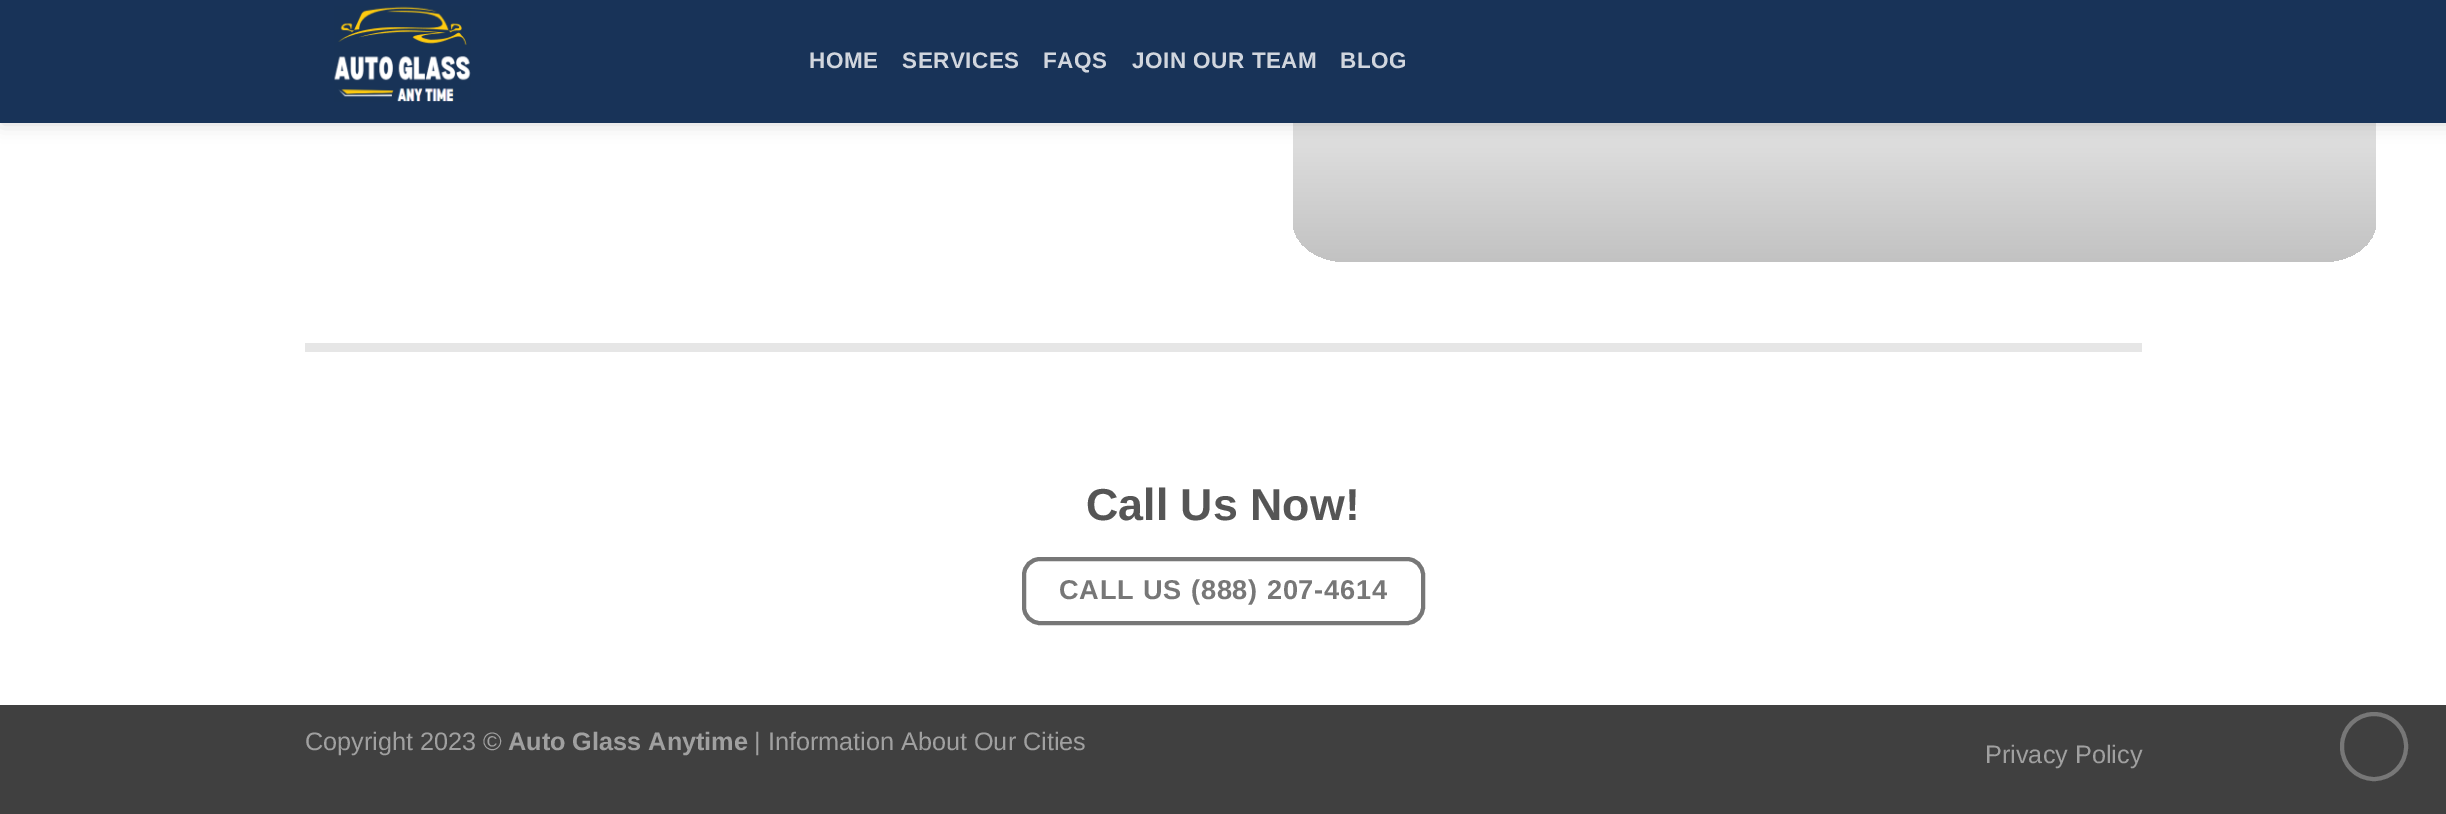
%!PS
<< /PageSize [2446 814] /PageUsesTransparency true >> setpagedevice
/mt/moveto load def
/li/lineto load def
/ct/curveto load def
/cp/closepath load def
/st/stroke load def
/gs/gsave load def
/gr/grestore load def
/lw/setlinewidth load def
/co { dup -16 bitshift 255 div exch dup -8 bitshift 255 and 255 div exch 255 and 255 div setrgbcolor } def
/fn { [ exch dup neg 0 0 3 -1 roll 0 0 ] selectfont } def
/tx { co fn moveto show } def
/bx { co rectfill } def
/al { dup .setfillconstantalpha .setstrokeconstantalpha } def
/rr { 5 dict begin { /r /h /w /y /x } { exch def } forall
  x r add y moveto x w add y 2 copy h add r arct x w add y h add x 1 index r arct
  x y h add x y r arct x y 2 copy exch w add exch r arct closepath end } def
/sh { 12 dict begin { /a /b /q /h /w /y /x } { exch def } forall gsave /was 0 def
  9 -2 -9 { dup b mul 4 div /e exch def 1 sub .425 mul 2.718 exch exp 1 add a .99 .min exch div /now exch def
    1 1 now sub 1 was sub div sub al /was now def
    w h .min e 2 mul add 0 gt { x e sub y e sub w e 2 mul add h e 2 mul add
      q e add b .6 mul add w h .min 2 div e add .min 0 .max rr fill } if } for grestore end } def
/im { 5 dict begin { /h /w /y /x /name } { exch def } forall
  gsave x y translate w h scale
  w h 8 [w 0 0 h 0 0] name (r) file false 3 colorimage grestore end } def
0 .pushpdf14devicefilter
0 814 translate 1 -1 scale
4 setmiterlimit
0 0 2446 814 16#FFFFFF bx
gs 2331 -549 mt 2357 -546 2376 -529 2376 -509 ct 2376 222 li 2376 244 2352 262 2322 262 ct 1347 262 li 1317 262 1293 244 1293 222 ct 1293 -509 li 1293 -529 1313 -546 1339 -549 ct cp clip newpath
<< /ShadingType 2 /ColorSpace /DeviceRGB /Coords [1835 263 1835 -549] /Extend [true true] /Function << /FunctionType 3 /Domain [0 1] /Functions [<< /FunctionType 2 /Domain [0 1] /C0 [.761 .761 .761] /C1 [1 1 1] /N 1 >> << /FunctionType 2 /Domain [0 1] /C0 [1 1 1] /C1 [1 1 1] /N 1 >>] /Bounds [.33] /Encode [0 1 0 1] >> >> shfill gr
16#000000 co
2 2 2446 122 0 9 .15 sh
0 0 2446 123 16#183358 bx
(media/1.raw) 334 6 137 96 im
305 343 1837 9 16#E6E6E6 bx
16#777777 co
4 lw
1024 559 399 64 16 rr st
0 705 2446 109 16#404040 bx
16#777777 co
2342 714 64 65 32 rr st
/LiberationSans-Bold 22.5 fn
16#D1D6DE co
809 68 mt .5 0 (HOME) ashow
902 68 mt .5 0 (SERVICES) ashow
1043 68 mt .5 0 (FAQS) ashow
1132 68 mt .5 0 (JOIN OUR TEAM) ashow
1340 68 mt .5 0 (BLOG) ashow
(Call Us Now!) 1086 520 /LiberationSans-Bold 44.75 16#555555 tx
/LiberationSans-Bold 27.2 fn
16#777777 co
1059 599 mt .8 0 (CALL US \(888\) 207-4614) ashow
(Copyright 2023 ©) 305 750 /LiberationSans-Regular 25.25 16#A0A0A0 tx
(Auto Glass Anytime) 508 750 /LiberationSans-Bold 25.25 16#A0A0A0 tx
(| Information About Our Cities) 754 750 /LiberationSans-Regular 25.25 16#A0A0A0 tx
(Privacy Policy) 1985 763 /LiberationSans-Regular 25.25 16#A0A0A0 tx
.poppdf14devicefilter showpage
